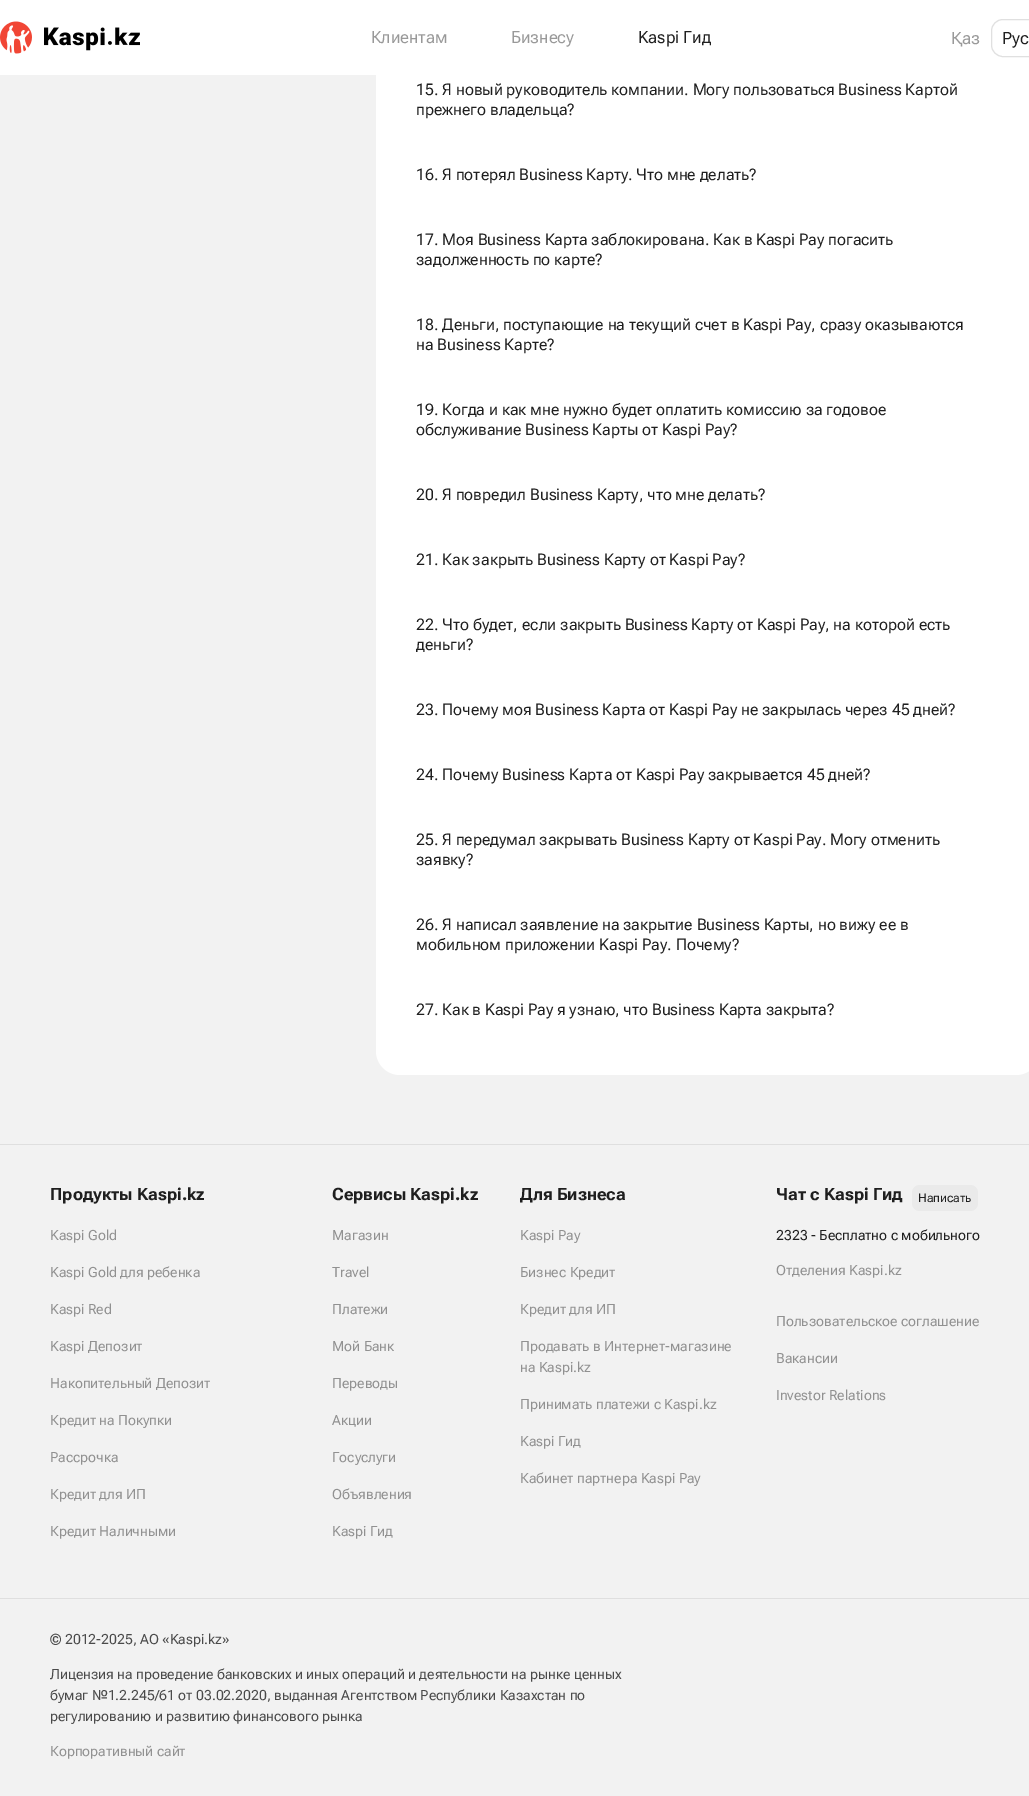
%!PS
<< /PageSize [1029 1796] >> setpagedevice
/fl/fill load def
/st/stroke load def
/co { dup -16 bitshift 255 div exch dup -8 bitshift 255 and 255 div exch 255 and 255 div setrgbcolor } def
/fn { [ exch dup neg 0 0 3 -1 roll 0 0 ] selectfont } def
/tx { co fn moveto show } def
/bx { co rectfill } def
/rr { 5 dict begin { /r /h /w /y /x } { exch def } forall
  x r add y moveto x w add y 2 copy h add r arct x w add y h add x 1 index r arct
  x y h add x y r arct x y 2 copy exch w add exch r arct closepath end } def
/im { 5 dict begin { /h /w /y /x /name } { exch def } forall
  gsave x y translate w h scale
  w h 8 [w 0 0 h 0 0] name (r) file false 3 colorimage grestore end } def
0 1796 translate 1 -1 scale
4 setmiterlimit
0 0 1029 1796 16#F2F2F2 bx
0 0 376 75 16#FFFFFF bx
(media/1.raw) 0 21 140 33 im
376 -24 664 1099 24 rr fl
16#E0E0E0 co
991.5 19.5 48 37 11.5 rr st
0 1144 1029 1 16#DFDFDF bx
16#EAEAEA co
912 1185 66 26 8 rr fl
0 1598 1029 1 16#DFDFDF bx
(Клиентам) 371 43 /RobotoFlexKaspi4-Italic 17 16#999999 tx
(Бизнесу) 511 43 /RobotoFlexKaspi4-Italic 17 16#999999 tx
(Kaspi Гид) 638 43 /RobotoFlexKaspi4-Italic 17 16#1F1F1F tx
(Қаз) 951 44 /RobotoFlex-Regular 17 16#999999 tx
(Рус) 1002 44 /RobotoFlex-Regular 17 16#1F1F1F tx
(15. Я новый руководитель компании. Могу пользоваться Business Картой) 416 95 /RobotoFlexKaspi-Italic 16 16#1F1F1F tx
(прежнего владельца?) 416 115 /RobotoFlexKaspi-Italic 16 16#1F1F1F tx
(16. Я потерял Business Карту. Что мне делать?) 416 180 /RobotoFlexKaspi-Italic 16 16#1F1F1F tx
(17. Моя Business Карта заблокирована. Как в Kaspi Pay погасить) 416 245 /RobotoFlexKaspi-Italic 16 16#1F1F1F tx
(задолженность по карте?) 416 265 /RobotoFlexKaspi-Italic 16 16#1F1F1F tx
(18. Деньги, поступающие на текущий счет в Kaspi Pay, сразу оказываются) 416 330 /RobotoFlexKaspi-Italic 16 16#1F1F1F tx
(на Business Карте?) 416 350 /RobotoFlexKaspi-Italic 16 16#1F1F1F tx
(19. Когда и как мне нужно будет оплатить комиссию за годовое) 416 415 /RobotoFlexKaspi-Italic 16 16#1F1F1F tx
(обслуживание Business Карты от Kaspi Pay?) 416 435 /RobotoFlexKaspi-Italic 16 16#1F1F1F tx
(20. Я повредил Business Карту, что мне делать?) 416 500 /RobotoFlexKaspi-Italic 16 16#1F1F1F tx
(21. Как закрыть Business Карту от Kaspi Pay?) 416 565 /RobotoFlexKaspi-Italic 16 16#1F1F1F tx
(22. Что будет, если закрыть Business Карту от Kaspi Pay, на которой есть) 416 630 /RobotoFlexKaspi-Italic 16 16#1F1F1F tx
(деньги?) 416 650 /RobotoFlexKaspi-Italic 16 16#1F1F1F tx
(23. Почему моя Business Карта от Kaspi Pay не закрылась через 45 дней?) 416 715 /RobotoFlexKaspi-Italic 16 16#1F1F1F tx
(24. Почему Business Карта от Kaspi Pay закрывается 45 дней?) 416 780 /RobotoFlexKaspi-Italic 16 16#1F1F1F tx
(25. Я передумал закрывать Business Карту от Kaspi Pay. Могу отменить) 416 845 /RobotoFlexKaspi-Italic 16 16#1F1F1F tx
(заявку?) 416 865 /RobotoFlexKaspi-Italic 16 16#1F1F1F tx
(26. Я написал заявление на закрытие Business Карты, но вижу ее в) 416 930 /RobotoFlexKaspi-Italic 16 16#1F1F1F tx
(мобильном приложении Kaspi Pay. Почему?) 416 950 /RobotoFlexKaspi-Italic 16 16#1F1F1F tx
(27. Как в Kaspi Pay я узнаю, что Business Карта закрыта?) 416 1015 /RobotoFlexKaspi-Italic 16 16#1F1F1F tx
(Продукты Kaspi.kz) 50 1200 /RobotoFlexKaspi-BoldItalic 17 16#1F1F1F tx
(Kaspi Gold) 50 1240 /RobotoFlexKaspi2-Italic 14 16#919191 tx
(Kaspi Gold для ребенка) 50 1277 /RobotoFlexKaspi2-Italic 14 16#919191 tx
(Kaspi Red) 50 1314 /RobotoFlexKaspi2-Italic 14 16#919191 tx
(Kaspi Депозит) 50 1351 /RobotoFlexKaspi2-Italic 14 16#919191 tx
(Накопительный Депозит) 50 1388 /RobotoFlexKaspi2-Italic 14 16#919191 tx
(Кредит на Покупки) 50 1425 /RobotoFlexKaspi2-Italic 14 16#919191 tx
(Рассрочка) 50 1462 /RobotoFlexKaspi2-Italic 14 16#919191 tx
(Кредит для ИП) 50 1499 /RobotoFlexKaspi2-Italic 14 16#919191 tx
(Кредит Наличными) 50 1536 /RobotoFlexKaspi2-Italic 14 16#919191 tx
(Сервисы Kaspi.kz) 332 1200 /RobotoFlexKaspi-BoldItalic 17 16#1F1F1F tx
(Магазин) 332 1240 /RobotoFlexKaspi2-Italic 14 16#919191 tx
(Travel) 332 1277 /RobotoFlexKaspi2-Italic 14 16#919191 tx
(Платежи) 332 1314 /RobotoFlexKaspi2-Italic 14 16#919191 tx
(Мой Банк) 332 1351 /RobotoFlexKaspi2-Italic 14 16#919191 tx
(Переводы) 332 1388 /RobotoFlexKaspi2-Italic 14 16#919191 tx
(Акции) 332 1425 /RobotoFlexKaspi2-Italic 14 16#919191 tx
(Госуслуги) 332 1462 /RobotoFlexKaspi2-Italic 14 16#919191 tx
(Объявления) 332 1499 /RobotoFlexKaspi2-Italic 14 16#919191 tx
(Kaspi Гид) 332 1536 /RobotoFlexKaspi2-Italic 14 16#919191 tx
(Для Бизнеса) 520 1200 /RobotoFlexKaspi-BoldItalic 17 16#1F1F1F tx
(Kaspi Pay) 520 1240 /RobotoFlexKaspi2-Italic 14 16#919191 tx
(Бизнес Кредит) 520 1277 /RobotoFlexKaspi2-Italic 14 16#919191 tx
(Кредит для ИП) 520 1314 /RobotoFlexKaspi2-Italic 14 16#919191 tx
(Продавать в Интернет-магазине) 520 1351 /RobotoFlexKaspi2-Italic 14 16#919191 tx
(на Kaspi.kz) 520 1372 /RobotoFlexKaspi2-Italic 14 16#919191 tx
(Принимать платежи с Kaspi.kz) 520 1409 /RobotoFlexKaspi2-Italic 14 16#919191 tx
(Kaspi Гид) 520 1446 /RobotoFlexKaspi2-Italic 14 16#919191 tx
(Кабинет партнера Kaspi Pay) 520 1483 /RobotoFlexKaspi2-Italic 14 16#919191 tx
(Чат с Kaspi Гид) 776 1200 /RobotoFlexKaspi-BoldItalic 17 16#1F1F1F tx
(Написать) 918 1202 /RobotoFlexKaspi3-Italic 12 16#1F1F1F tx
(2323 - Бесплатно с мобильного) 776 1240 /RobotoFlexKaspi2-Italic 14 16#1F1F1F tx
(Отделения Kaspi.kz) 776 1275 /RobotoFlexKaspi2-Italic 14 16#919191 tx
(Пользовательское соглашение) 776 1326 /RobotoFlexKaspi2-Italic 14 16#919191 tx
(Вакансии) 776 1363 /RobotoFlexKaspi2-Italic 14 16#919191 tx
(Investor Relations) 776 1400 /RobotoFlexKaspi2-Italic 14 16#919191 tx
(© 2012-2025, АО «Kaspi.kz») 50 1644 /RobotoFlexKaspi2-Italic 14 16#4A4A4A tx
(Лицензия на проведение банковских и иных операций и деятельности на рынке ценных) 50 1679 /RobotoFlexKaspi2-Italic 14 16#4A4A4A tx
(бумаг №1.2.245/61 от 03.02.2020, выданная Агентством Республики Казахстан по) 50 1700 /RobotoFlexKaspi2-Italic 14 16#4A4A4A tx
(регулированию и развитию финансового рынка) 50 1721 /RobotoFlexKaspi2-Italic 14 16#4A4A4A tx
(Корпоративный сайт) 50 1756 /RobotoFlexKaspi2-Italic 14 16#919191 tx
showpage
